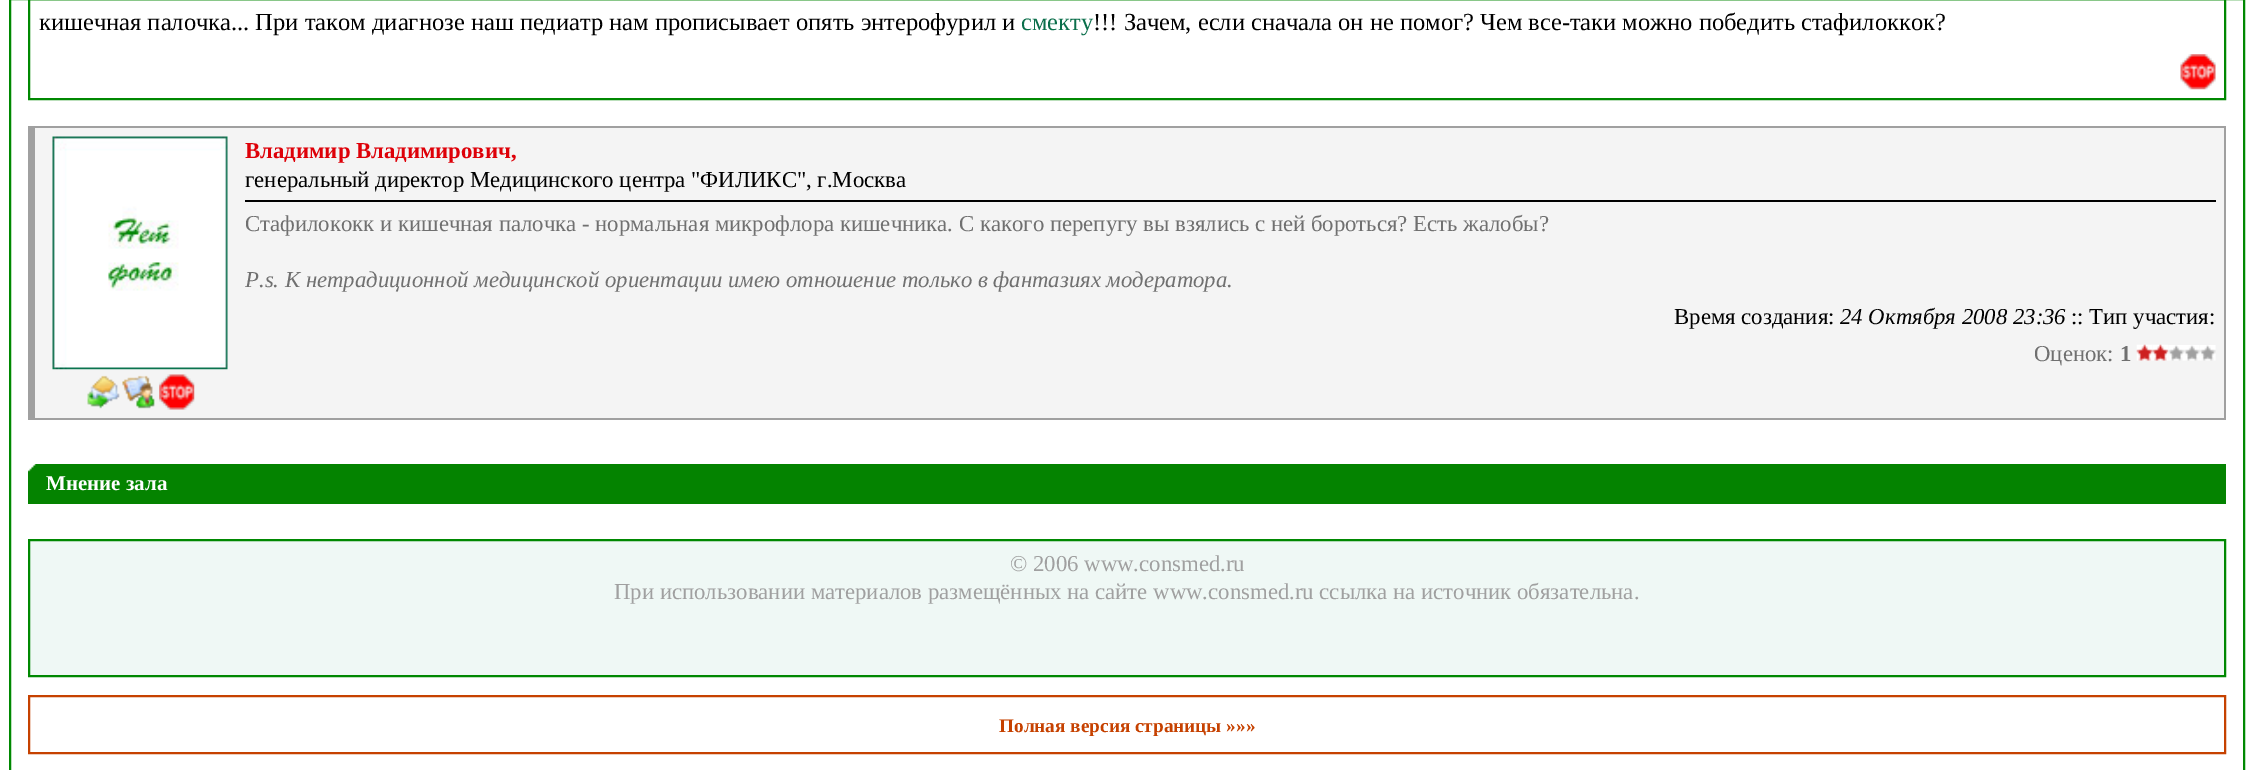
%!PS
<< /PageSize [2254 770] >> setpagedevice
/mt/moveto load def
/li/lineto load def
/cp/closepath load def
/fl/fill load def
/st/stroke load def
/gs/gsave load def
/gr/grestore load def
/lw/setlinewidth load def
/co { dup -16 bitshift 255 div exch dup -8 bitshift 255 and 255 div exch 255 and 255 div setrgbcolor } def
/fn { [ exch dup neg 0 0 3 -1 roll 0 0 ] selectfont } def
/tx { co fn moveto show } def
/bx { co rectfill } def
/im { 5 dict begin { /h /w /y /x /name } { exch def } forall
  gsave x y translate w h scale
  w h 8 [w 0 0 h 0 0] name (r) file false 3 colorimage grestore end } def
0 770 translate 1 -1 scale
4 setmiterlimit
0 0 2254 770 16#FFFFFF bx
16#008801 co
2 lw
10 -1 2234 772 rectstroke
29 -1 2196 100 rectstroke
(media/1.raw) 2180 54 36 36 im
35 128 2189 290 16#F4F4F4 bx
28 126 2198 2 16#A0A0A0 bx
2224 126 2 294 16#A0A0A0 bx
28 418 2198 2 16#A0A0A0 bx
28 126 7 294 16#A0A0A0 bx
(media/2.raw) 52 136 176 234 im
(media/3.raw) 87 375 33 34 im
(media/4.raw) 122 375 33 34 im
(media/5.raw) 159 374 36 36 im
245 200 1971 2 16#000000 bx
(media/6.raw) 2136 344 17 17 im
(media/7.raw) 2152 344 17 17 im
(media/8.raw) 2168 345 16 16 im
(media/9.raw) 2184 345 16 16 im
(media/10.raw) 2200 345 16 16 im
28 464 2198 40 16#048300 bx
(media/11.raw) 28 464 8 8 im
16#EFF8F5 co
29 540 mt 2225 540 li 2225 676 li 29 676 li cp gs fl gr
16#008801 co
st
16#C64100 co
29 696 2196 57 rectstroke
(кишечная палочка... При таком диагнозе наш педиатр нам прописывает опять энтерофурил и) 39 30 /LiberationSerif-Regular 24.5 16#000000 tx
(смекту) 1021 30 /LiberationSerif-Regular 24.5 16#0B6F4B tx
(!!! Зачем, если сначала он не помог? Чем все-таки можно победить стафилоккок?) 1093 30 /LiberationSerif-Regular 24.5 16#000000 tx
(Владимир Владимирович,) 245 158 /LiberationSerif-Bold 22.75 16#DE0008 tx
(генеральный директор Медицинского центра "ФИЛИКС", г.Москва) 245 187 /LiberationSerif-Regular 22.75 16#000000 tx
(Стафилококк и кишечная палочка - нормальная микрофлора кишечника. С какого перепугу вы взялись с ней бороться? Есть жалобы?) 245 231 /LiberationSerif-Regular 22.75 16#707070 tx
(P.s. К нетрадиционной медицинской ориентации имею отношение только в фантазиях модератора.) 245 287 /LiberationSerif-Italic 22.75 16#707070 tx
(Время создания:) 1674 324 /LiberationSerif-Regular 22.75 16#000000 tx
(24 Октября 2008 23:36) 1840 324 /LiberationSerif-Italic 22.75 16#000000 tx
(:: Тип участия:) 2071 324 /LiberationSerif-Regular 22.75 16#000000 tx
(Оценок:) 2034 361 /LiberationSerif-Regular 22.75 16#707070 tx
(1) 2120 361 /LiberationSerif-Bold 22.75 16#707070 tx
(Мнение зала) 46 490 /LiberationSerif-Bold 21 16#FFFFFF tx
(© 2006 www.consmed.ru) 1010 571 /LiberationSerif-Regular 22.75 16#A0A0A0 tx
(При использовании материалов размещённых на сайте www.consmed.ru ссылка на источник обязательна.) 614 599 /LiberationSerif-Regular 22.75 16#A0A0A0 tx
(Полная версия страницы »»») 999 732 /LiberationSerif-Bold 19.25 16#C64100 tx
showpage
